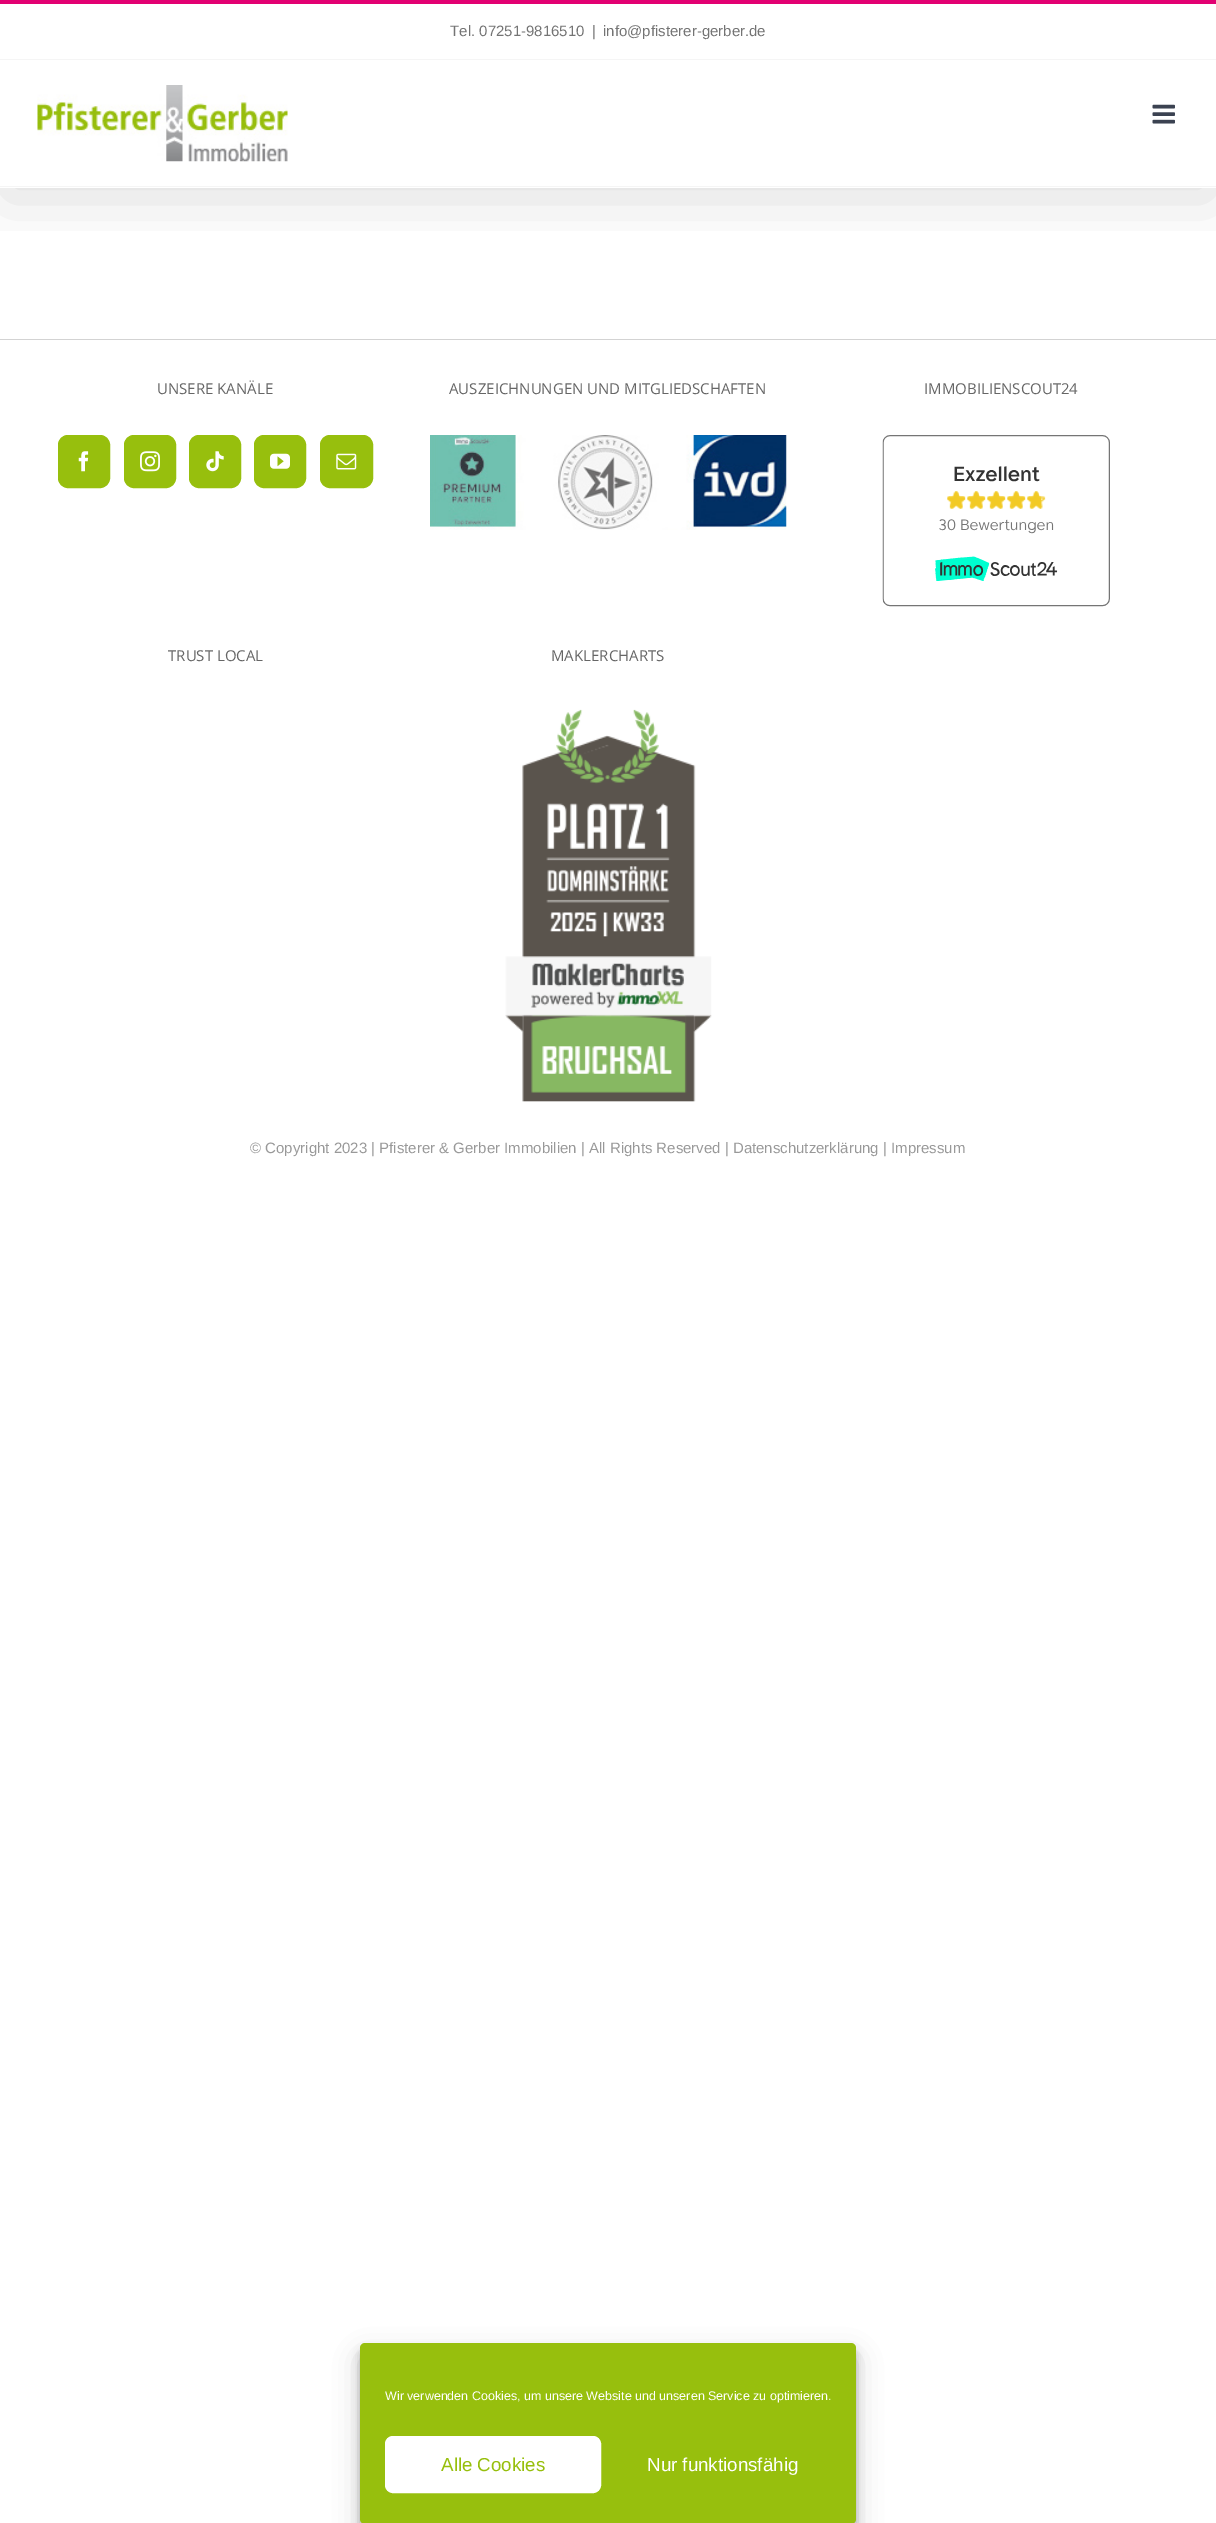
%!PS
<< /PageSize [1216 2523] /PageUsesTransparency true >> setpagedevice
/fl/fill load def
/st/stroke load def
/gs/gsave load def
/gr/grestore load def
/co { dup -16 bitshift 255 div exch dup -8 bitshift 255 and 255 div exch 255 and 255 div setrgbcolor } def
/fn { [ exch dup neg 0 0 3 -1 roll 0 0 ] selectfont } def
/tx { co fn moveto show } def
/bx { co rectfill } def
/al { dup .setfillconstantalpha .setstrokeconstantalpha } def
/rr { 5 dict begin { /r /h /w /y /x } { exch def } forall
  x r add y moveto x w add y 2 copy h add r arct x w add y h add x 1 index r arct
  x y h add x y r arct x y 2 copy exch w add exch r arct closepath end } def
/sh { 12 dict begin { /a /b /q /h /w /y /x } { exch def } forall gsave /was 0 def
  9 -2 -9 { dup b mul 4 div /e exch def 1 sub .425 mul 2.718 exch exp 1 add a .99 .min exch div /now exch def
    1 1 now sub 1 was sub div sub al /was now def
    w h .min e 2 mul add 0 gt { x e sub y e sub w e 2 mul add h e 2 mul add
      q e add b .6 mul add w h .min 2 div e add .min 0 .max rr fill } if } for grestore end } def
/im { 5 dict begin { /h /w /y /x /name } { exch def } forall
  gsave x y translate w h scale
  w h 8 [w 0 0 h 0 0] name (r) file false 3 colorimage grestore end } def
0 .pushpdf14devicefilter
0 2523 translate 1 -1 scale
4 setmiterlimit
0 0 1216 2523 16#FFFFFF bx
gs
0 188 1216 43 rectclip
16#000000 co
3 15 1211 183 0 31 .14 sh
gr
0 0 1216 4 16#E20072 bx
0 59 1216 1 16#F5F5F5 bx
0 187 1216 1 16#FFFFFF bx
0 186 1216 1 16#F5F5F5 bx
(media/1.raw) 37 85 251 77 im
(media/2.raw) 1152 104 23 20 im
0 339 1216 1 16#D3D3D3 bx
16#97BF0D co
58.5 435.5 51 52 9.5 rr gs fl gr
st
(media/3.raw) 78 451 11 21 im
124.5 435.5 51 52 9.5 rr gs fl gr
st
(media/4.raw) 140 451 20 21 im
189.5 435.5 51 52 9.5 rr gs fl gr
st
(media/5.raw) 206 451 18 21 im
254.5 435.5 51 52 9.5 rr gs fl gr
st
(media/6.raw) 270 453 20 16 im
320.5 435.5 52 52 9.5 rr gs fl gr
st
(media/7.raw) 336 453 21 17 im
(media/8.raw) 430 435 357 95 im
(media/9.raw) 882 435 228 172 im
(media/10.raw) 505 709 207 393 im
16#000000 co
360 2350 496 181 5 4 .23 sh
360 2355 496 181 5 12.5 .19 sh
16#97BF0D co
360 2343 496 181 5 rr fl
16#FFFFFF co
385.5 2436.5 215 56 7.5 rr gs fl gr
st
(Tel. 07251-9816510) 450 36 /LiberationSans-Regular 15 16#747474 tx
(|) 592 36 /LiberationSans-Regular 15 16#747474 tx
(info@pfisterer-gerber.de) 603 36 /LiberationSans-Regular 15 16#747474 tx
(UNSERE KANÄLE) 157 394 /OpenSans-Regular 15 16#666666 tx
(AUSZEICHNUNGEN UND MITGLIEDSCHAFTEN) 449 394 /OpenSans-Regular 15 16#666666 tx
(IMMOBILIENSCOUT24) 924 394 /OpenSans-Regular 15 16#666666 tx
(TRUST LOCAL) 168 661 /OpenSans-Regular 15 16#666666 tx
(MAKLERCHARTS) 551 661 /OpenSans-Regular 15 16#666666 tx
(© Copyright 2023 | Pfisterer & Gerber Immobilien | All Rights Reserved | Datenschutzerklärung | Impressum) 250 1153 /LiberationSans-Regular 15 16#999999 tx
(Wir verwenden Cookies, um unsere Website und unseren Service zu optimieren.) 385 2400 /LiberationSans-Regular 12.5 16#FFFFFF tx
(Alle Cookies) 441 2471 /LiberationSans-Regular 18.75 16#97BF0D tx
(Nur funktionsfähig) 647 2471 /LiberationSans-Regular 18.75 16#FFFFFF tx
.poppdf14devicefilter showpage
